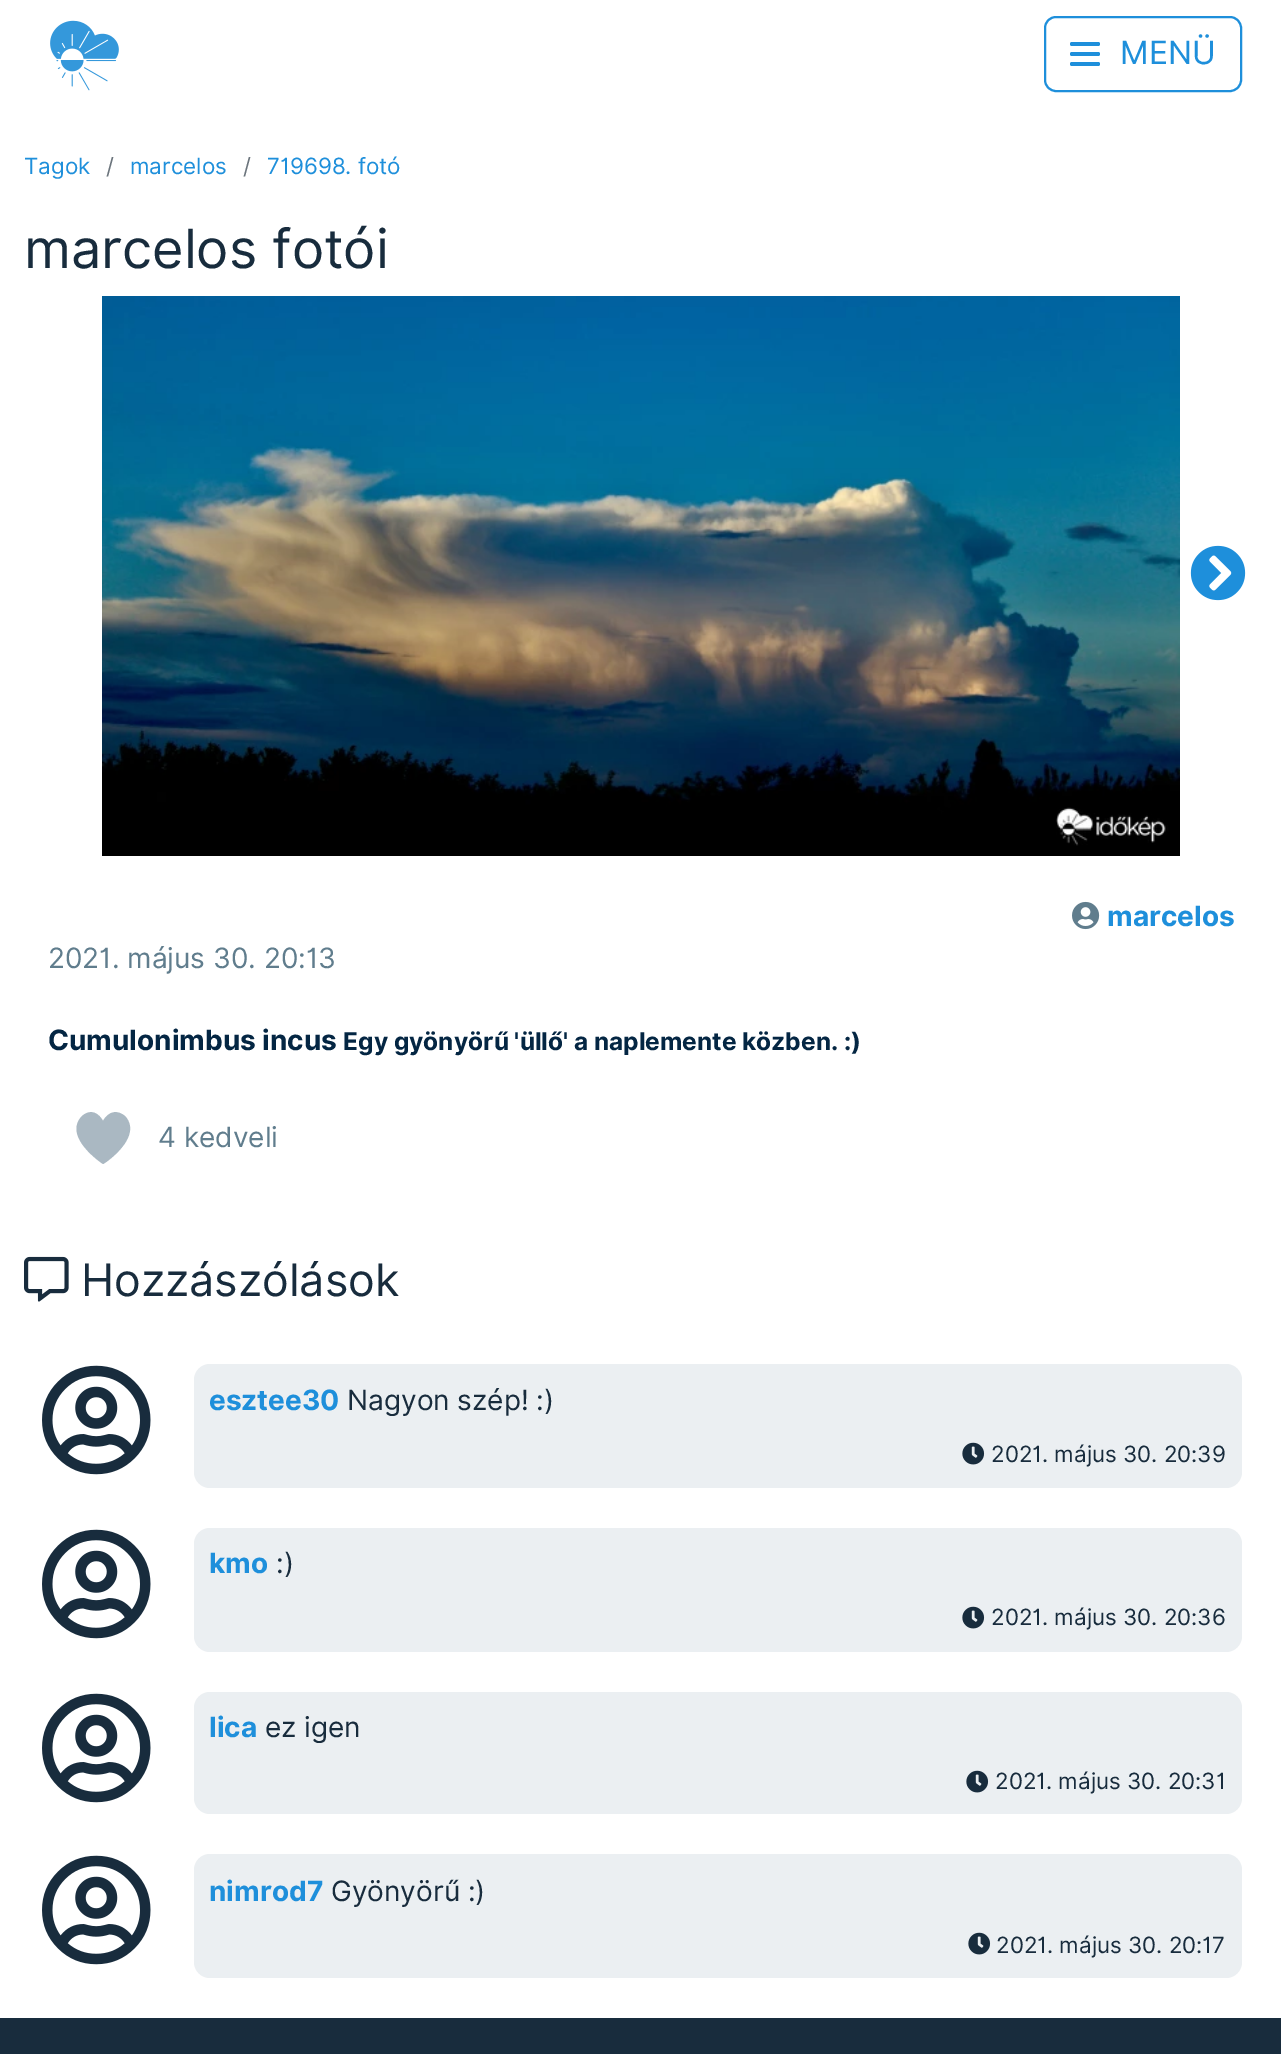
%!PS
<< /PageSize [1281 2054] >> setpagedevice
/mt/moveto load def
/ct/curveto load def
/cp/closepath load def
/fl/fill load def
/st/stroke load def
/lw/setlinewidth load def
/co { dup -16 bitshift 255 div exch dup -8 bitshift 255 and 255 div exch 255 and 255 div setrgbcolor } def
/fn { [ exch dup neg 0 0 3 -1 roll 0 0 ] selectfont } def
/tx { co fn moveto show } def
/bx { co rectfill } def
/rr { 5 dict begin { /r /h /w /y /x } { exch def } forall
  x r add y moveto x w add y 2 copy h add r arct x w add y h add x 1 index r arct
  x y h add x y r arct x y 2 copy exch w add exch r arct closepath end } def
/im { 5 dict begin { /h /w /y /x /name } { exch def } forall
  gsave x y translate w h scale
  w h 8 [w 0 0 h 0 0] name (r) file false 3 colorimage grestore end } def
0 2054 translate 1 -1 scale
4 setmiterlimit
0 0 1281 2054 16#182C3D bx
0 0 1281 2018 16#FFFFFF bx
(media/1.raw) 50 20 69 71 im
16#1E8FDB co
2 lw
1045 17 196 74 11 rr st
1070 42 30 4 2 rr fl
1070 52 30 4 2 rr fl
1070 62 30 4 2 rr fl
(media/2.raw) 102 296 1078 560 im
(media/3.raw) 1190 545 56 56 im
(media/4.raw) 1072 901 28 29 im
16#AAB8C2 co
103 1121 mt 103 1121 95 1105 82 1116 ct 62 1137 103 1164 103 1164 ct 104 1164 144 1137 125 1116 ct 111 1105 103 1121 103 1121 ct cp eofill
(media/5.raw) 24 1256 45 46 im
(media/6.raw) 42 1365 109 110 im
16#EBEFF2 co
194 1364 1048 124 16 rr fl
(media/7.raw) 962 1442 23 23 im
(media/6.raw) 42 1529 109 110 im
194 1528 1048 124 16 rr fl
(media/7.raw) 962 1606 23 23 im
(media/6.raw) 42 1693 109 110 im
194 1692 1048 122 16 rr fl
(media/7.raw) 966 1770 23 23 im
(media/6.raw) 42 1855 109 110 im
194 1854 1048 124 16 rr fl
(media/7.raw) 968 1932 23 23 im
(MENÜ) 1120 64 /Inter-Regular 32 16#1E8FDB tx
(Tagok) 24 174 /Inter-Regular 22.4 16#1E8FDB tx
(/) 106 174 /Inter-Regular 22.4 16#6C757D tx
(marcelos) 130 174 /Inter-Regular 22.4 16#1E8FDB tx
(/) 243 174 /Inter-Regular 22.4 16#6C757D tx
(719698. fotó) 267 174 /Inter-Regular 22.4 16#1E8FDB tx
(marcelos fotói) 24 268 /Inter-Regular 54 16#182C3D tx
(marcelos) 1107 926 /Inter-Bold 28 16#1E8FDB tx
(2021. május 30. 20:13) 48 968 /Inter-Regular 28 16#607D8D tx
(Cumulonimbus incus) 48 1050 /Inter-Bold 28 16#042643 tx
(Egy gyönyörű 'üllő' a naplemente közben. :\)) 343 1050 /Inter-Bold 24.5 16#042643 tx
(4 kedveli) 158 1147 /Inter-Regular 28 16#607D8D tx
(Hozzászólások) 81 1296 /Inter-Regular 44.75 16#182C3D tx
(esztee30) 209 1410 /Inter-Bold 28 16#1E8FDB tx
(Nagyon szép! :\)) 347 1410 /Inter-Regular 28 16#182C3D tx
(2021. május 30. 20:39) 991 1462 /Inter-Regular 22.4 16#182C3D tx
(kmo) 209 1573 /Inter-Bold 28 16#1E8FDB tx
(:\)) 276 1573 /Inter-Regular 28 16#182C3D tx
(2021. május 30. 20:36) 991 1625 /Inter-Regular 22.4 16#182C3D tx
(lica) 209 1737 /Inter-Bold 28 16#1E8FDB tx
(ez igen) 265 1737 /Inter-Regular 28 16#182C3D tx
(2021. május 30. 20:31) 995 1789 /Inter-Regular 22.4 16#182C3D tx
(nimrod7) 209 1901 /Inter-Bold 28 16#1E8FDB tx
(Gyönyörű :\)) 331 1901 /Inter-Regular 28 16#182C3D tx
(2021. május 30. 20:17) 996 1953 /Inter-Regular 22.4 16#182C3D tx
showpage
